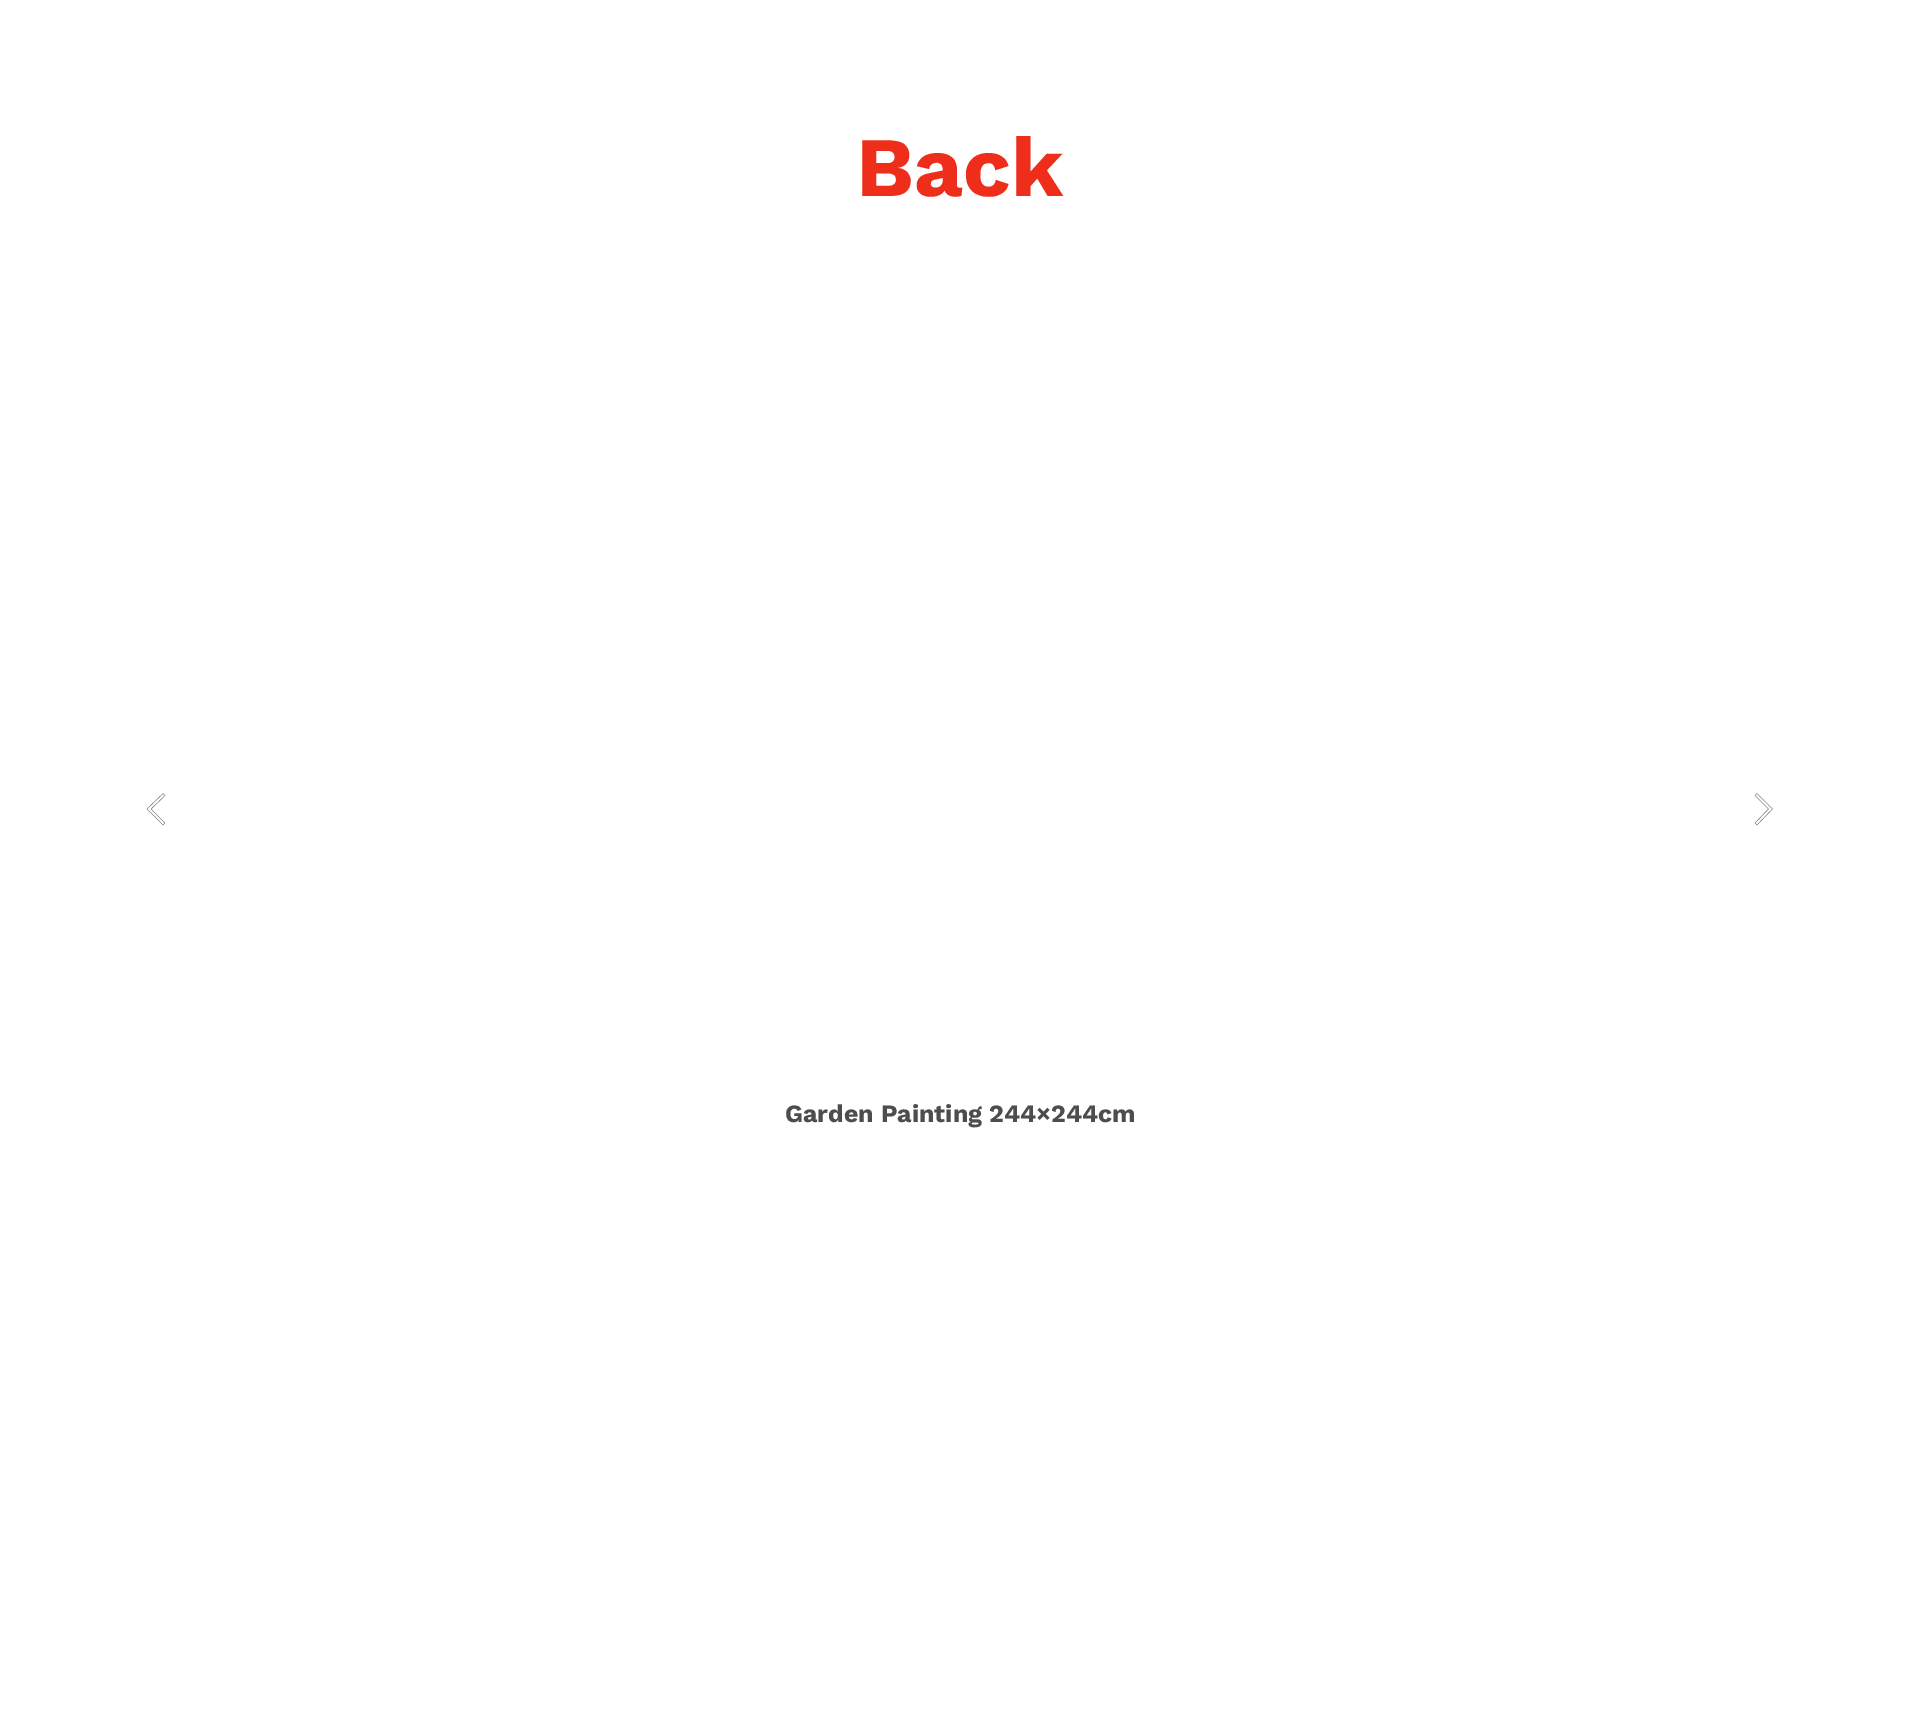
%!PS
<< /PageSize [1920 1726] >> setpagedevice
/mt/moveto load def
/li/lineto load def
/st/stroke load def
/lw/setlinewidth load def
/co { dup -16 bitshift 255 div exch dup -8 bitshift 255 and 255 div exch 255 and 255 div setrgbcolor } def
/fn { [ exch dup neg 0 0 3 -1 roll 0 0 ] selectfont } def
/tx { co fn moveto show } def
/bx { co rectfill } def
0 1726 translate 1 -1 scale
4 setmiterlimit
0 0 1920 1726 16#FFFFFF bx
16#666666 co
3.1 lw
2 setlinecap
163 823 mt 149 809 li 163 795.5 li st
16#FFFFFF co
1.9 lw
163 823 mt 149 809 li 163 795.5 li st
16#666666 co
3.1 lw
1757 823 mt 1770.5 809 li 1757 795.5 li st
16#FFFFFF co
1.9 lw
1757 823 mt 1770.5 809 li 1757 795.5 li st
(Back) 856 196 /WorkSans-Bold 84.5 16#EE2E1A tx
(Garden Painting 244×244cm) 785 1122 /WorkSans-Bold 24.9 16#4D4D4D tx
showpage
